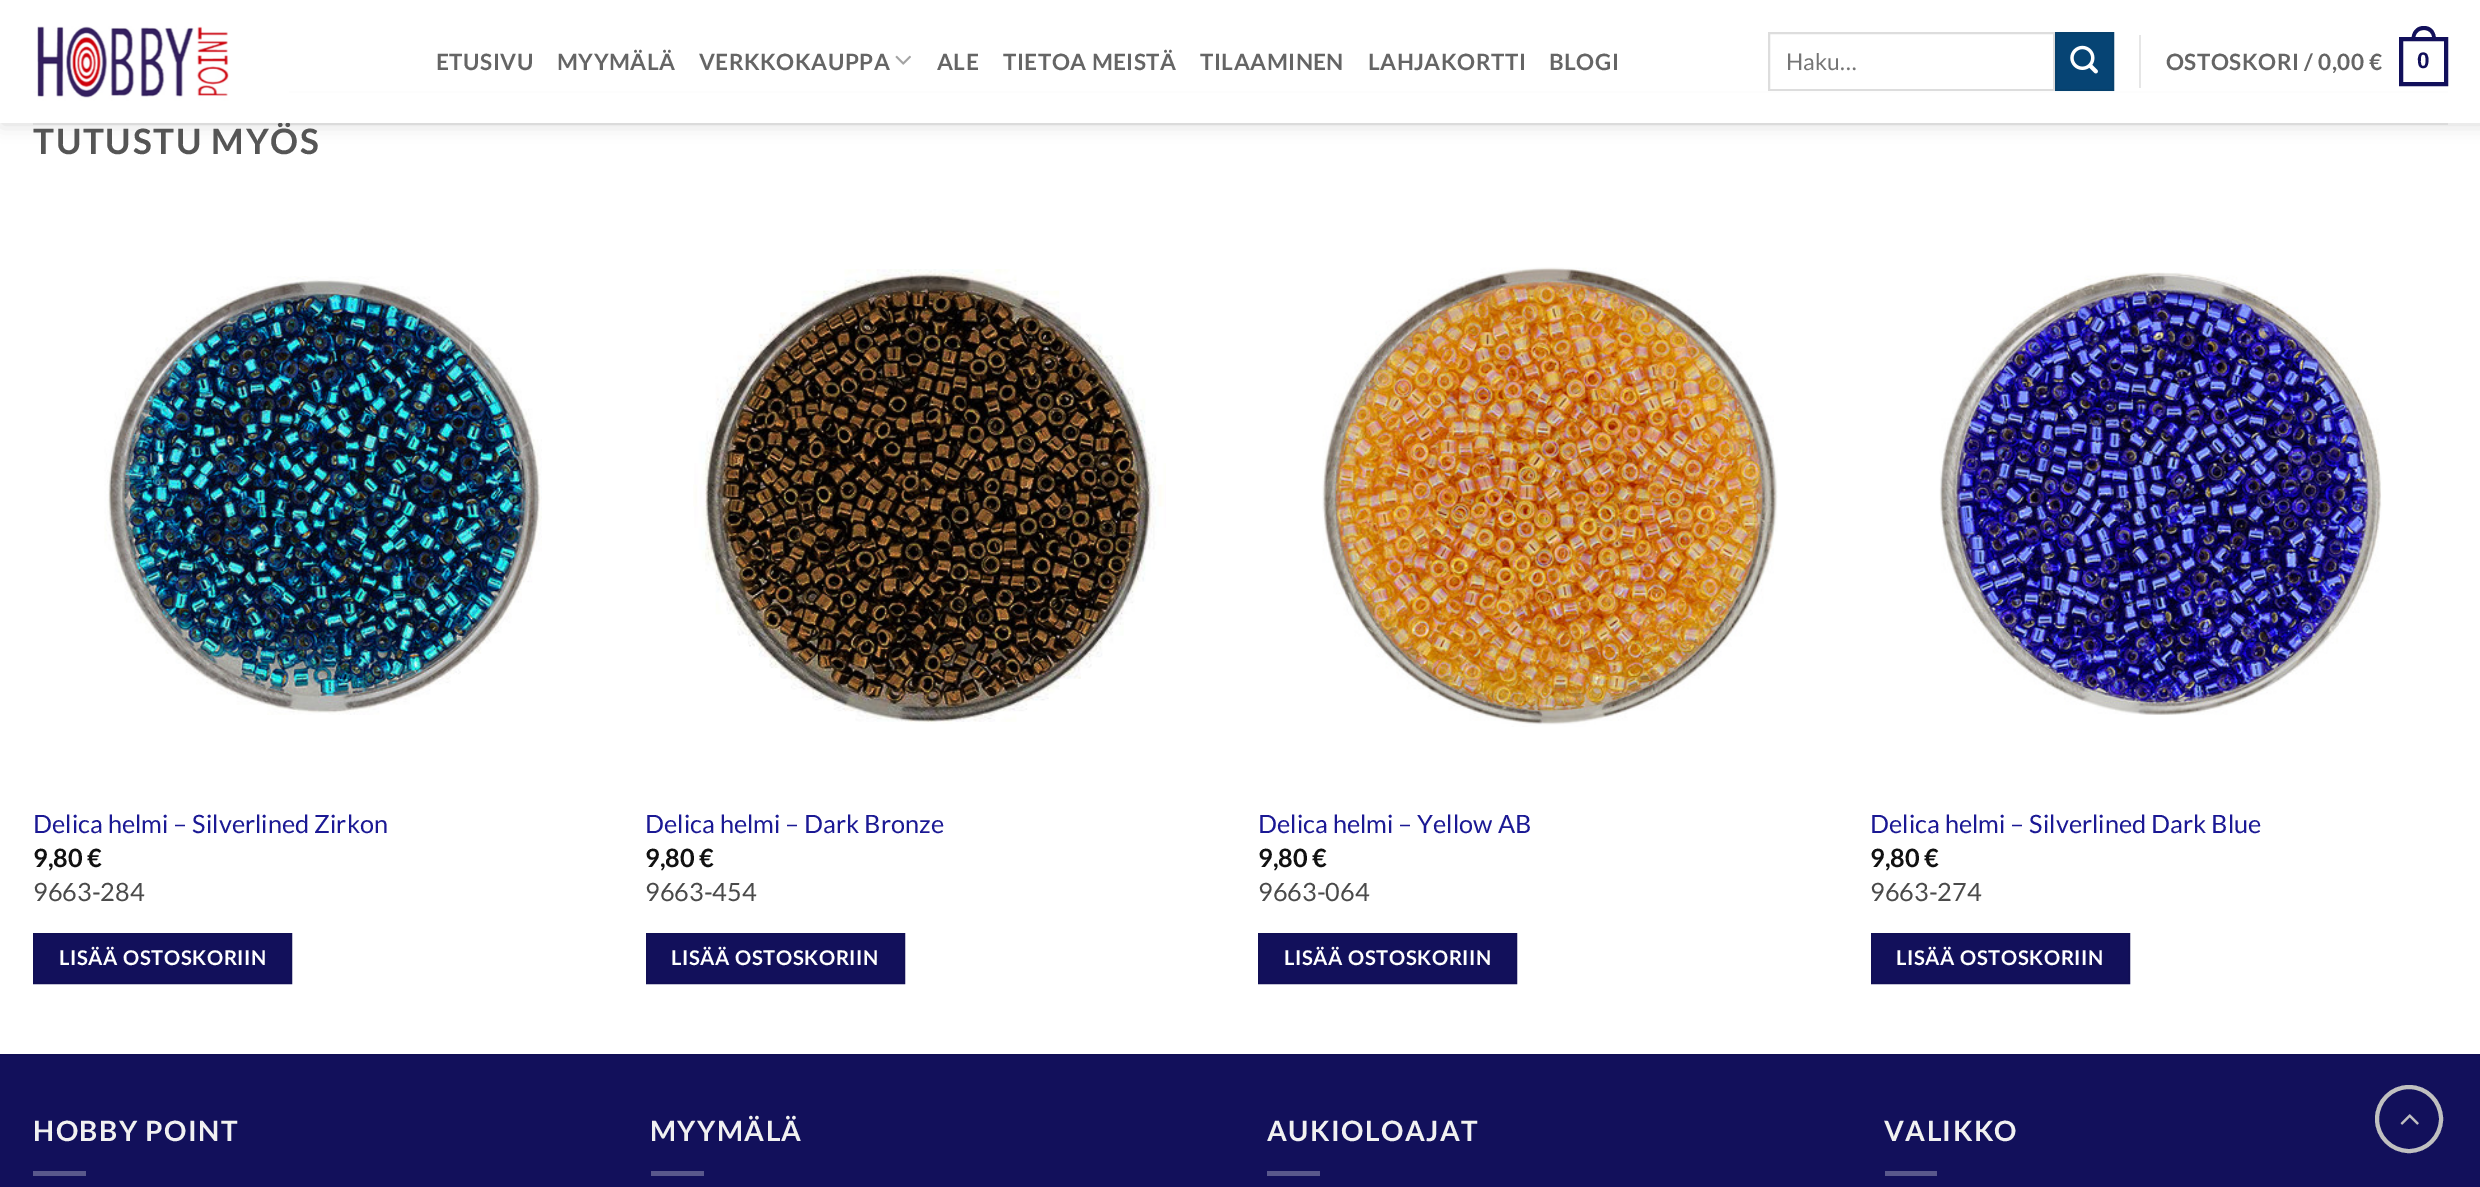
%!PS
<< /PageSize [2480 1187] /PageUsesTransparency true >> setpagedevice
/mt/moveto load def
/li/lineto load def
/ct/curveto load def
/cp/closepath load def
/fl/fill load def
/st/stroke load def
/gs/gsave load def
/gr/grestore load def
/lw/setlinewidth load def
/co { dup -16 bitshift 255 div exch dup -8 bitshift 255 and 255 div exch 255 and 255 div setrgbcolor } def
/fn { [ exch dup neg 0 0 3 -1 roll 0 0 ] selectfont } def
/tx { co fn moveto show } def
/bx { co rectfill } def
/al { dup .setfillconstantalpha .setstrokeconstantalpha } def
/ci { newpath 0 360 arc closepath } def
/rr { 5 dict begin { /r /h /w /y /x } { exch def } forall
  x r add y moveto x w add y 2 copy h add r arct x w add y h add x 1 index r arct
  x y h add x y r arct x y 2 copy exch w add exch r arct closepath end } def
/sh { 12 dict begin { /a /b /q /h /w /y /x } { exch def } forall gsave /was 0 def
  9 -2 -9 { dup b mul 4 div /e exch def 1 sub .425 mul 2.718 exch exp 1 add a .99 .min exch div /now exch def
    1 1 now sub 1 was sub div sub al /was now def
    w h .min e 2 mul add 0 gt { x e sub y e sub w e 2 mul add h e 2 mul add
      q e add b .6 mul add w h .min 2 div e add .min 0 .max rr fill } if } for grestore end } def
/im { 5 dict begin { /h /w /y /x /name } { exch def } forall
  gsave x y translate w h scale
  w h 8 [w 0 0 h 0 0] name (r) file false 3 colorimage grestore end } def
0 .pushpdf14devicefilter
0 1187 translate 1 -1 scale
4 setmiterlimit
0 0 2480 1187 16#FFFFFF bx
33 91 2415 2 16#ECECEC bx
gs
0 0 mt 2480 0 li 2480 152 li 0 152 li cp 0 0 mt 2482 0 li 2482 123 li 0 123 li cp eoclip newpath
16#000000 co
2 2 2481 122 0 9 .15 sh
gr
(media/2.raw) 895 55 16 10 im
16#DDDDDD co
2 lw
1769 33 285 57 rectstroke
16#064474 co
2056 33 mt 2113 33 li 2113 90 li 2056 90 li cp gs fl gr
16#06416E co
st
(media/3.raw) 2070 45 28 29 im
2139 35 2 53 16#E6E6E6 bx
16#12105B co
4 lw
2401 39 45 45 rectstroke
2424 26 mt 2432 26 2436 32.5 2436 40 ct 2411.5 40 li 2411.5 32.5 2415.5 26 2424 26 ct cp 2424 30 mt 2430 30 2432.5 34.5 2432.5 40 ct 2415 40 li 2415 34.5 2417.5 30 2424 30 ct cp eofill
0.1 al
33 123 2415 2 16#4A4A4A bx
1 al
(media/4.raw) 104 276 438 439 im
16#12105B co
34 934 mt 291 934 li 291 983 li 34 983 li cp gs fl gr
16#110F56 co
2 lw
st
(media/5.raw) 693 269 473 455 im
16#12105B co
647 934 mt 904 934 li 904 983 li 647 983 li cp gs fl gr
16#110F56 co
st
(media/6.raw) 1322 267 456 460 im
16#12105B co
1259 934 mt 1516 934 li 1516 983 li 1259 983 li cp gs fl gr
16#110F56 co
st
(media/7.raw) 1939 272 443 443 im
16#12105B co
1872 934 mt 2129 934 li 2129 983 li 1872 983 li cp gs fl gr
16#110F56 co
st
0 1056 2480 131 16#12105B bx
0 1054 2480 2 16#110F56 bx
33 1171 53 5 16#59588C bx
651 1171 53 5 16#59588C bx
1267 1171 53 5 16#59588C bx
1885 1171 52 5 16#59588C bx
16#C0C0C0 co
4 lw
2409 1119 32 ci st
(media/8.raw) 2400 1114 19 11 im
/Lato-Bold 22.5 fn
16#656565 co
436 70 mt .5 0 (ETUSIVU) ashow
557 70 mt .5 0 (MYYMÄLÄ) ashow
699 70 mt .5 0 (VERKKOKAUPPA) ashow
937 70 mt .5 0 (ALE) ashow
1003 70 mt .5 0 (TIETOA MEISTÄ) ashow
1200 70 mt .5 0 (TILAAMINEN) ashow
1368 70 mt .5 0 (LAHJAKORTTI) ashow
1549 70 mt .5 0 (BLOGI) ashow
(Haku…) 1786 70 /Lato-Regular 23 16#757575 tx
/Lato-Bold 22.5 fn
16#656565 co
2166 70 mt .5 0 (OSTOSKORI / 0,00 €) ashow
/LiberationSans-Bold 22.5 fn
16#12105B co
2417 68 mt .5 0 (0) ashow
/Lato-Bold 35 fn
16#555555 co
33 154 mt 1.75 0 (TUTUSTU MYÖS) ashow
0.9 al
0 91 2480 32 16#FFFFFF bx
1 al
(media/1.raw) 37 26 252 97 im
(Delica helmi – Silverlined Zirkon) 33 833 /Lato-Regular 25.25 16#1B1994 tx
(9,80 €) 33 867 /Lato-Bold 25.25 16#111111 tx
(9663-284) 33 901 /Lato-Regular 25.25 16#4A4A4A tx
/Lato-Bold 20.25 fn
16#FFFFFF co
59 965 mt .6 0 (LISÄÄ OSTOSKORIIN) ashow
(Delica helmi – Dark Bronze) 645 833 /Lato-Regular 25.25 16#1B1994 tx
(9,80 €) 645 867 /Lato-Bold 25.25 16#111111 tx
(9663-454) 645 901 /Lato-Regular 25.25 16#4A4A4A tx
/Lato-Bold 20.25 fn
16#FFFFFF co
671 965 mt .6 0 (LISÄÄ OSTOSKORIIN) ashow
(Delica helmi – Yellow AB) 1258 833 /Lato-Regular 25.25 16#1B1994 tx
(9,80 €) 1258 867 /Lato-Bold 25.25 16#111111 tx
(9663-064) 1258 901 /Lato-Regular 25.25 16#4A4A4A tx
/Lato-Bold 20.25 fn
16#FFFFFF co
1284 965 mt .6 0 (LISÄÄ OSTOSKORIIN) ashow
(Delica helmi – Silverlined Dark Blue) 1870 833 /Lato-Regular 25.25 16#1B1994 tx
(9,80 €) 1870 867 /Lato-Bold 25.25 16#111111 tx
(9663-274) 1870 901 /Lato-Regular 25.25 16#4A4A4A tx
/Lato-Bold 20.25 fn
16#FFFFFF co
1896 965 mt .6 0 (LISÄÄ OSTOSKORIIN) ashow
/Lato-Bold 28 fn
16#F1F1F1 co
33 1141 mt 1.4 0 (HOBBY POINT) ashow
650 1141 mt 1.4 0 (MYYMÄLÄ) ashow
1267 1141 mt 1.4 0 (AUKIOLOAJAT) ashow
1884 1141 mt 1.4 0 (VALIKKO) ashow
.poppdf14devicefilter showpage
